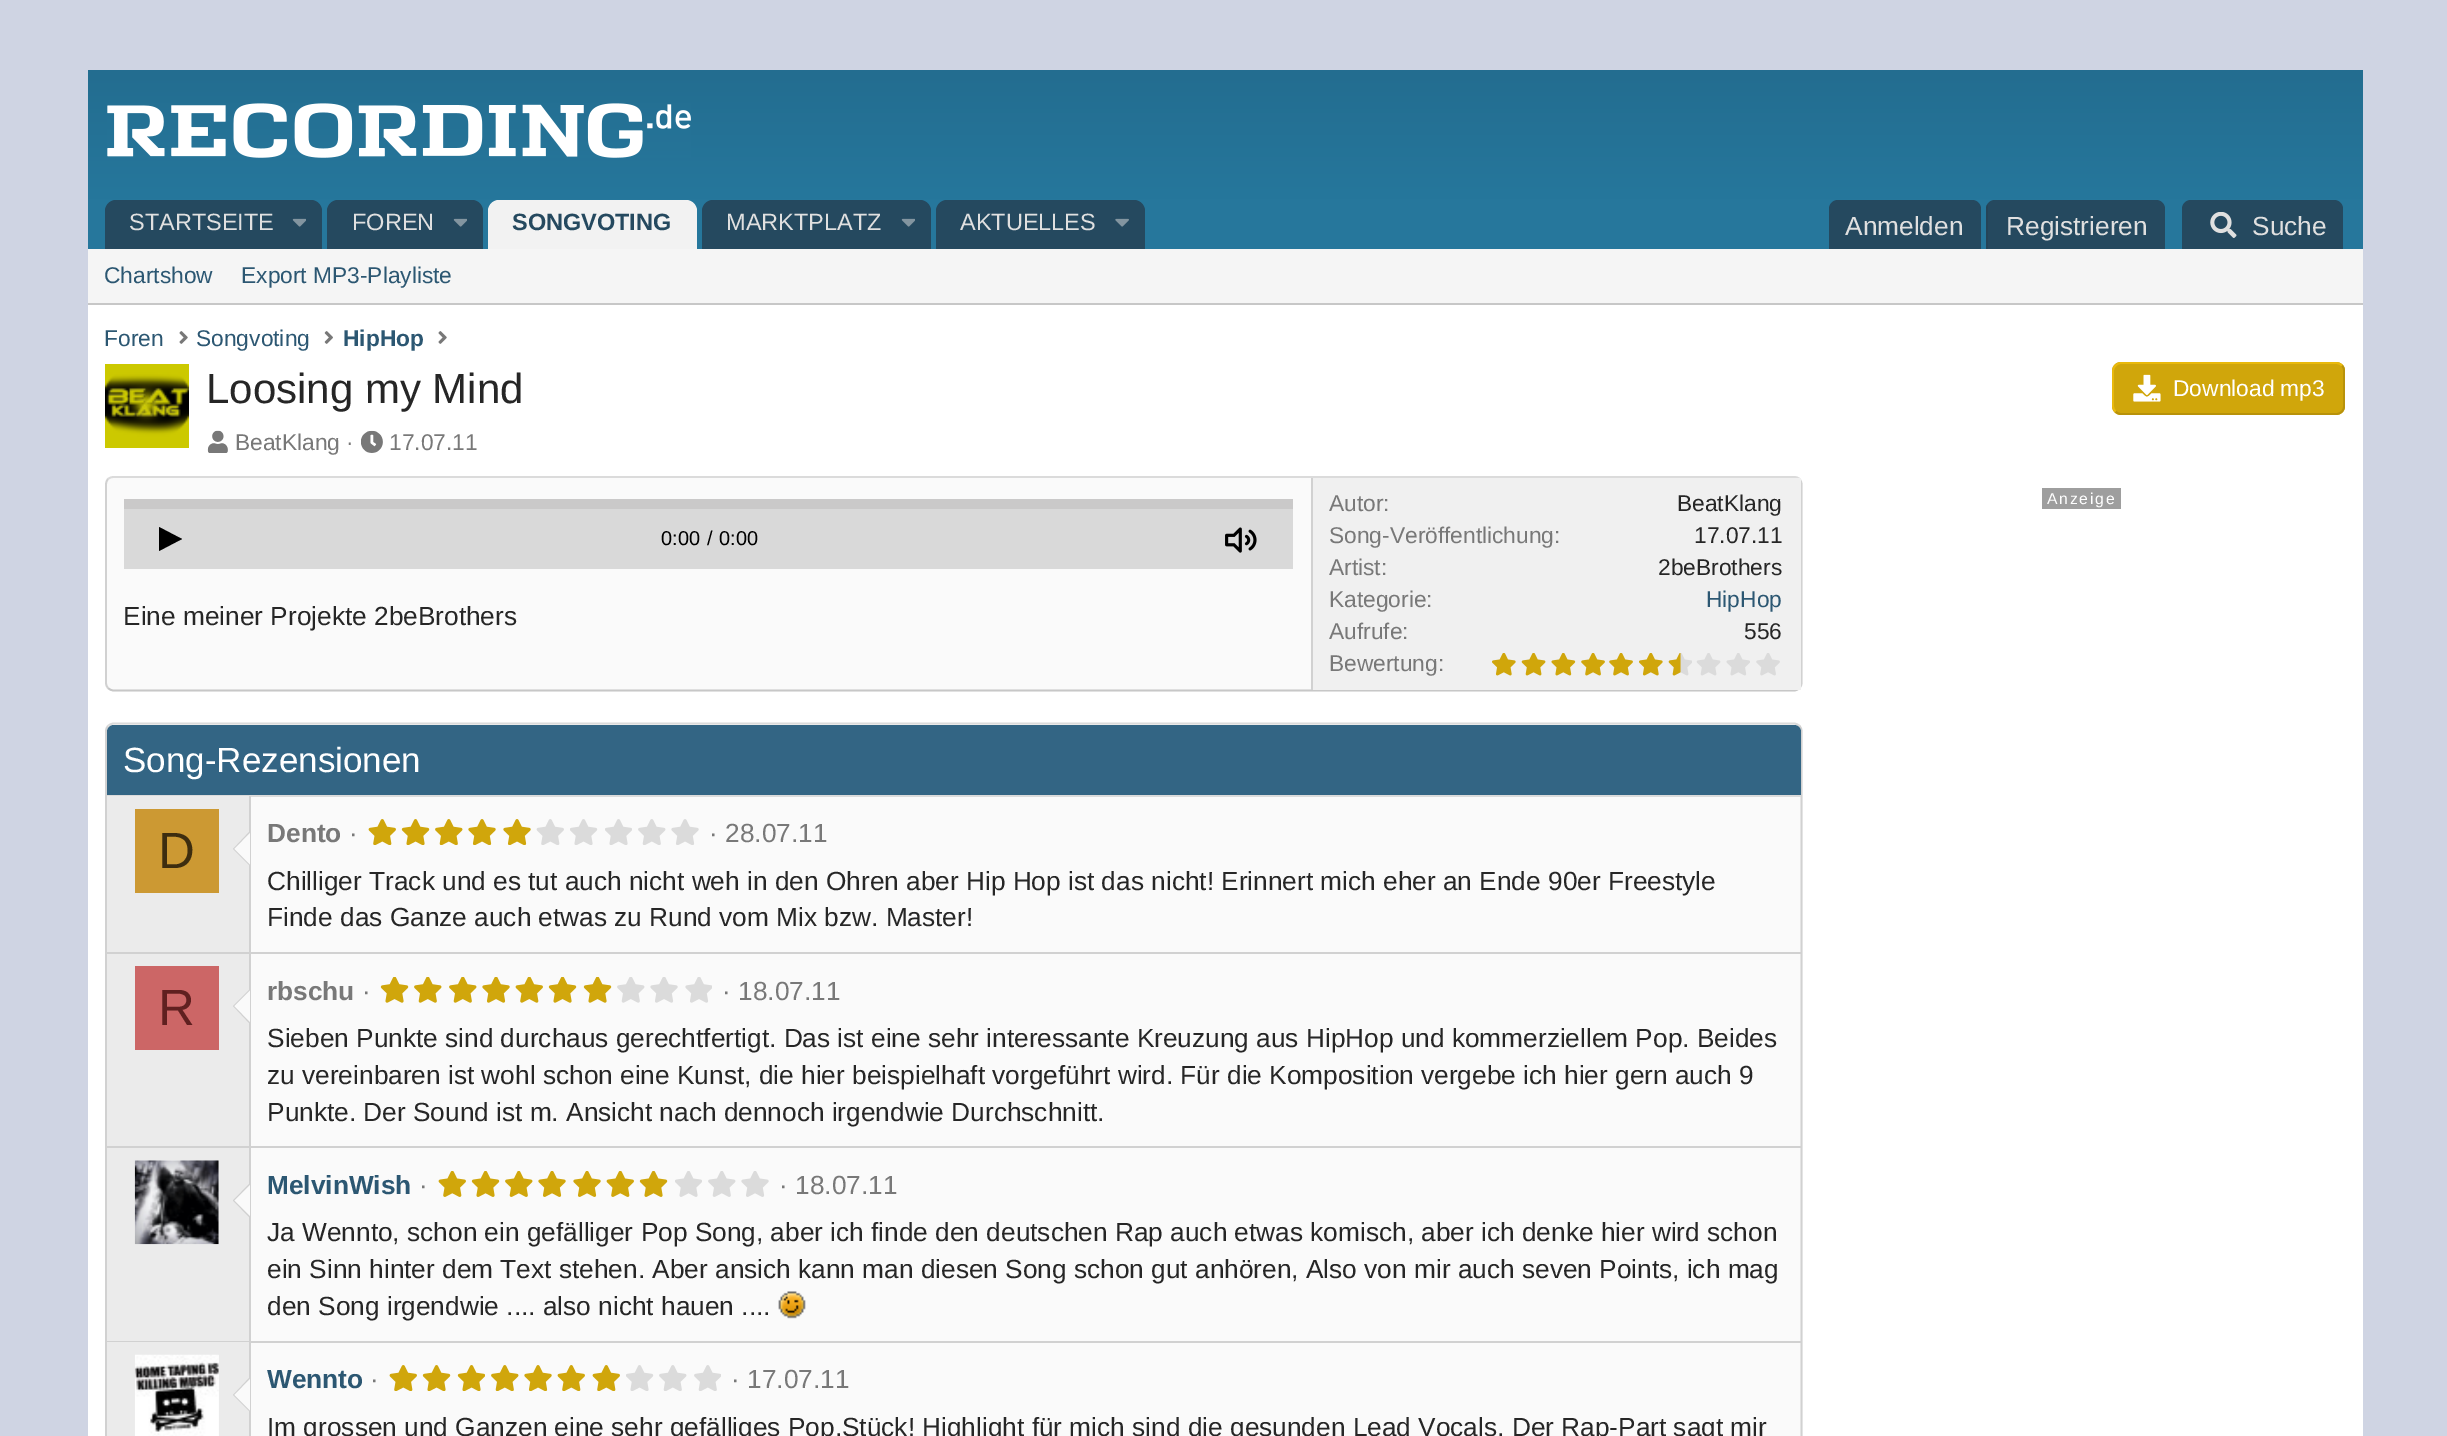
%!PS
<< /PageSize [2447 1436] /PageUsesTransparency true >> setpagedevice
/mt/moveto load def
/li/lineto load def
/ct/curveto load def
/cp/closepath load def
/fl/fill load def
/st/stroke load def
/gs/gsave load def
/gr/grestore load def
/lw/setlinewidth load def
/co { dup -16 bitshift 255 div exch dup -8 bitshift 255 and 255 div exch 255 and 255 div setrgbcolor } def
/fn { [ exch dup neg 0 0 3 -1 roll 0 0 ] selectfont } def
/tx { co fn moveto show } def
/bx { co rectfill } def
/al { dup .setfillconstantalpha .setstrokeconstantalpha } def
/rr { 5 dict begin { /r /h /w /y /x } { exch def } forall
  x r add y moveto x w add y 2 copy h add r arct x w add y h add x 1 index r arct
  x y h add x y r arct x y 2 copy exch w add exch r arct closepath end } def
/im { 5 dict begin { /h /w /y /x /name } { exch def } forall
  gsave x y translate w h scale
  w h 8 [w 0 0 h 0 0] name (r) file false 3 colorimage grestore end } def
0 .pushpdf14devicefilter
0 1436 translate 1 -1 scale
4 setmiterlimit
0 0 2447 1436 16#CFD4E3 bx
gs 88 70 mt 2363 70 li 2363 200 li 88 200 li cp clip newpath
<< /ShadingType 2 /ColorSpace /DeviceRGB /Coords [1225 70 1225 200] /Extend [true true] /Function << /FunctionType 2 /Domain [0 1] /C0 [.137 .427 .565] /C1 [.149 .467 .612] /N 1 >> >> shfill gr
(media/1.raw) 107 103 584 55 im
88 200 2275 49 16#26779C bx
16#25495F co
116 200 mt 311 200 li 317 200 322 205 322 211 ct 322 249 li 105 249 li 105 211 li 105 205 110 200 116 200 ct cp fl
(media/2.raw) 292 218 14 9 im
338 200 mt 472 200 li 478 200 483 205 483 211 ct 483 249 li 327 249 li 327 211 li 327 205 332 200 338 200 ct cp fl
(media/2.raw) 453 218 14 9 im
16#F2F2F2 co
499 200 mt 686 200 li 692 200 697 205 697 211 ct 697 249 li 488 249 li 488 211 li 488 205 493 200 499 200 ct cp fl
16#25495F co
713 200 mt 920 200 li 926 200 931 205 931 211 ct 931 249 li 702 249 li 702 211 li 702 205 707 200 713 200 ct cp fl
(media/2.raw) 901 218 14 9 im
947 200 mt 1134 200 li 1140 200 1145 205 1145 211 ct 1145 249 li 936 249 li 936 211 li 936 205 941 200 947 200 ct cp fl
(media/3.raw) 1115 218 14 9 im
1838 200 mt 1972 200 li 1977 200 1981 204 1981 209 ct 1981 249 li 1829 249 li 1829 209 li 1829 204 1833 200 1838 200 ct cp fl
1995 200 mt 2156 200 li 2161 200 2165 204 2165 209 ct 2165 249 li 1986 249 li 1986 209 li 1986 204 1990 200 1995 200 ct cp fl
0.15 al
1986 205 2 44 16#262626 bx
1 al
16#25495F co
2191 200 mt 2334 200 li 2339 200 2343 204 2343 209 ct 2343 249 li 2182 249 li 2182 209 li 2182 204 2186 200 2191 200 ct cp fl
(media/4.raw) 2210 212 27 26 im
88 249 2275 54 16#F5F5F5 bx
88 303 2275 2 16#C7C7C7 bx
88 305 2275 1131 16#FFFFFF bx
(media/5.raw) 179 331 9 13 im
(media/6.raw) 324 331 9 13 im
(media/5.raw) 438 331 9 13 im
(media/7.raw) 105 364 84 84 im
16#D0A60B co
2112 362 233 53 9 rr fl
16#B8920A co
1.8 lw
2342 365.5 mt 2343.5 367 2344 369 2344 371 ct 2344 406 li 2344 408 2343.5 410 2342 411.5 ct 2340.5 413 2338.5 414 2336 414 ct 2121 414 li 2119 414 2117 413 2115.5 411.5 ct st
16#E9B90C co
2115.5 411.5 mt 2114 410 2113 408 2113 406 ct 2113 371 li 2113 369 2114 367 2115.5 365.5 ct 2117 364 2119 363 2121 363 ct 2336 363 li 2338.5 363 2340.5 364 2342 365.5 ct st
(media/8.raw) 2133 374 28 28 im
(media/9.raw) 207 430 21 23 im
(media/10.raw) 361 430 22 23 im
16#FAFAFA co
105 476 1698 215 9 rr fl
16#DBDBDB co
108 479 mt 109.5 477.5 111.5 477 114 477 ct 1794 477 li 1796 477 1798 477.5 1799.5 479 ct st
16#D1D1D1 co
1799.5 479 mt 1801 480.5 1801.5 482.5 1801.5 485 ct 1801.5 682.5 li 1801.5 684.5 1801 686.5 1799.5 688 ct st
16#C7C7C7 co
1799.5 688 mt 1798 689.5 1796 690.5 1794 690.5 ct 114 690.5 li 111.5 690.5 109.5 689.5 108 688 ct st
16#D1D1D1 co
108 688 mt 106.5 686.5 106 684.5 106 682.5 ct 106 485 li 106 482.5 106.5 480.5 108 479 ct st
124 509 1169 60 16#D9D9D9 bx
124 499 1169 10 16#CAC9C9 bx
16#000000 co
159 551 mt 159 527 li 182 539 li cp fl
(media/11.raw) 1225 527 32 26 im
1313 478 488 212 16#F0F0F0 bx
1311 478 2 212 16#D1D1D1 bx
(media/12.raw) 1492 653 24 23 im
(media/13.raw) 1521 653 25 23 im
(media/14.raw) 1551 653 25 23 im
(media/15.raw) 1581 653 24 23 im
(media/15.raw) 1609 653 24 23 im
(media/12.raw) 1639 653 24 23 im
(media/16.raw) 1668 653 24 23 im
(media/17.raw) 1668 653 13 23 im
(media/18.raw) 1696 653 25 23 im
(media/19.raw) 1726 653 24 23 im
(media/20.raw) 1756 653 24 23 im
16#FAFAFA co
105 723 1698 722 9 rr fl
16#DBDBDB co
108 726 mt 109.5 724.5 111.5 723.5 114 723.5 ct 1794 723.5 li 1796 723.5 1798 724.5 1799.5 726 ct st
16#D1D1D1 co
1799.5 726 mt 1801 727.5 1801.5 729.5 1801.5 731.5 ct 1801.5 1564.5 li 1801.5 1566.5 1801 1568.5 1799.5 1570 ct st
108 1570 mt 106.5 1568.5 106 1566.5 106 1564.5 ct 106 731.5 li 106 729.5 106.5 727.5 108 726 ct st
16#336584 co
114 725 mt 1794 725 li 1798 725 1801 728 1801 732 ct 1801 796 li 107 796 li 107 732 li 107 728 110 725 114 725 ct cp fl
107 795 1694 2 16#DBDBDB bx
107 796 142 156 16#EBEBEB bx
249 796 2 156 16#D1D1D1 bx
135 809 84 84 16#CC9933 bx
16#D1D1D1 co
250 831 mt 250 866 li 233 849 li cp fl
16#FAFAFA co
250 833 mt 250 864.5 li 234.5 849 li cp fl
(media/21.raw) 368 819 28 26 im
(media/22.raw) 401 819 29 26 im
(media/23.raw) 435 819 28 26 im
(media/24.raw) 468 819 28 26 im
(media/24.raw) 503 819 28 26 im
(media/25.raw) 536 819 28 26 im
(media/26.raw) 570 819 28 26 im
(media/27.raw) 605 819 27 26 im
(media/28.raw) 638 819 28 26 im
(media/29.raw) 671 819 28 26 im
107 952 1694 2 16#D1D1D1 bx
107 954 142 192 16#EBEBEB bx
249 954 2 192 16#D1D1D1 bx
135 966 84 84 16#CC6666 bx
16#D1D1D1 co
250 989 mt 250 1024 li 233 1006 li cp fl
16#FAFAFA co
250 990.5 mt 250 1022 li 234.5 1006 li cp fl
(media/30.raw) 380 977 29 26 im
(media/31.raw) 414 977 28 26 im
(media/31.raw) 449 977 28 26 im
(media/32.raw) 482 977 28 26 im
(media/33.raw) 515 977 28 26 im
(media/30.raw) 548 977 29 26 im
(media/30.raw) 583 977 29 26 im
(media/34.raw) 617 977 28 26 im
(media/35.raw) 650 977 28 26 im
(media/36.raw) 685 977 27 26 im
107 1146 1694 2 16#D1D1D1 bx
107 1148 142 193 16#EBEBEB bx
249 1148 2 193 16#D1D1D1 bx
135 1160 84 84 16#FAFAFA bx
(media/37.raw) 134 1160 85 85 im
16#D1D1D1 co
250 1183 mt 250 1218 li 233 1200.5 li cp fl
16#FAFAFA co
250 1185 mt 250 1216 li 234.5 1200.5 li cp fl
(media/38.raw) 438 1171 28 26 im
(media/39.raw) 471 1171 29 26 im
(media/40.raw) 505 1171 28 26 im
(media/41.raw) 538 1171 28 26 im
(media/41.raw) 573 1171 28 26 im
(media/38.raw) 606 1171 28 26 im
(media/39.raw) 639 1171 29 26 im
(media/42.raw) 675 1171 27 26 im
(media/43.raw) 708 1171 28 26 im
(media/44.raw) 741 1171 28 26 im
(media/45.raw) 778 1291 28 28 im
107 1341 1694 2 16#D1D1D1 bx
107 1342 142 94 16#EBEBEB bx
249 1342 2 94 16#D1D1D1 bx
218 1355 1 81 16#FAFAFA bx
(media/46.raw) 134 1354 85 82 im
16#D1D1D1 co
250 1377 mt 250 1412 li 233 1395 li cp fl
16#FAFAFA co
250 1379 mt 250 1410.5 li 234.5 1395 li cp fl
(media/21.raw) 389 1365 28 26 im
(media/22.raw) 422 1365 29 26 im
(media/47.raw) 457 1365 28 26 im
(media/23.raw) 491 1365 28 26 im
(media/24.raw) 524 1365 28 26 im
(media/21.raw) 557 1365 28 26 im
(media/21.raw) 592 1365 28 26 im
(media/26.raw) 626 1365 28 26 im
(media/28.raw) 659 1365 28 26 im
(media/48.raw) 694 1365 27 26 im
2042 488 79 21 16#9E9E9E bx
(STARTSEITE) 129 230 /LiberationSans-Regular 23.5 16#E0E0E0 tx
(FOREN) 352 230 /LiberationSans-Regular 23.5 16#E0E0E0 tx
(SONGVOTING) 512 230 /LiberationSans-Bold 23.5 16#25495F tx
(MARKTPLATZ) 726 230 /LiberationSans-Regular 23.5 16#E0E0E0 tx
(AKTUELLES) 960 230 /LiberationSans-Regular 23.5 16#E0E0E0 tx
(Anmelden) 1845 235 /LiberationSans-Regular 26.25 16#E0E0E0 tx
(Registrieren) 2006 235 /LiberationSans-Regular 26.25 16#E0E0E0 tx
(Suche) 2252 235 /LiberationSans-Regular 26.25 16#E0E0E0 tx
(Chartshow) 104 283 /LiberationSans-Regular 22.75 16#2C5772 tx
(Export MP3-Playliste) 241 283 /LiberationSans-Regular 22.75 16#2C5772 tx
(Foren) 104 346 /LiberationSans-Regular 22.75 16#2C5772 tx
(Songvoting) 196 346 /LiberationSans-Regular 22.75 16#2C5772 tx
(HipHop) 343 346 /LiberationSans-Bold 22.75 16#2C5772 tx
(Loosing my Mind) 206 403 /LiberationSans-Regular 42 16#262626 tx
(Download mp3) 2173 396 /LiberationSans-Regular 22.75 16#FFFFFF tx
(BeatKlang ·) 235 450 /LiberationSans-Regular 22.75 16#787878 tx
(17.07.11) 389 450 /LiberationSans-Regular 22.75 16#787878 tx
(0:00) 661 545 /LiberationSans-Regular 20 16#000000 tx
(/) 707 545 /LiberationSans-Regular 20 16#000000 tx
(0:00) 719 545 /LiberationSans-Regular 20 16#000000 tx
(Eine meiner Projekte 2beBrothers) 123 625 /LiberationSans-Regular 26.25 16#262626 tx
(Autor:) 1329 511 /LiberationSans-Regular 22.75 16#787878 tx
(BeatKlang) 1677 511 /LiberationSans-Regular 22.75 16#262626 tx
(Song-Veröffentlichung:) 1329 543 /LiberationSans-Regular 22.75 16#787878 tx
(17.07.11) 1694 543 /LiberationSans-Regular 22.75 16#262626 tx
(Artist:) 1329 575 /LiberationSans-Regular 22.75 16#787878 tx
(2beBrothers) 1658 575 /LiberationSans-Regular 22.75 16#262626 tx
(Kategorie:) 1329 607 /LiberationSans-Regular 22.75 16#787878 tx
(HipHop) 1706 607 /LiberationSans-Regular 22.75 16#2C5772 tx
(Aufrufe:) 1329 639 /LiberationSans-Regular 22.75 16#787878 tx
(556) 1744 639 /LiberationSans-Regular 22.75 16#262626 tx
(Bewertung:) 1329 671 /LiberationSans-Regular 22.75 16#787878 tx
(Song-Rezensionen) 123 772 /LiberationSans-Regular 35 16#FFFFFF tx
(D) 158 868 /LiberationSans-Regular 51 16#3D2D0F tx
(Dento) 267 842 /LiberationSans-Bold 26.25 16#787878 tx
(·) 349 842 /LiberationSans-Regular 26.25 16#787878 tx
(· 28.07.11) 709 842 /LiberationSans-Regular 26.25 16#787878 tx
(Chilliger Track und es tut auch nicht weh in den Ohren aber Hip Hop ist das nicht! Erinnert mich eher an Ende 90er Freestyle) 267 890 /LiberationSans-Regular 26.25 16#262626 tx
(Finde das Ganze auch etwas zu Rund vom Mix bzw. Master!) 267 926 /LiberationSans-Regular 26.25 16#262626 tx
(R) 158 1025 /LiberationSans-Regular 51 16#602020 tx
(rbschu) 267 1000 /LiberationSans-Bold 26.25 16#787878 tx
(·) 362 1000 /LiberationSans-Regular 26.25 16#787878 tx
(· 18.07.11) 722 1000 /LiberationSans-Regular 26.25 16#787878 tx
(Sieben Punkte sind durchaus gerechtfertigt. Das ist eine sehr interessante Kreuzung aus HipHop und kommerziellem Pop. Beides) 267 1047 /LiberationSans-Regular 26.25 16#262626 tx
(zu vereinbaren ist wohl schon eine Kunst, die hier beispielhaft vorgeführt wird. Für die Komposition vergebe ich hier gern auch 9) 267 1084 /LiberationSans-Regular 26.25 16#262626 tx
(Punkte. Der Sound ist m. Ansicht nach dennoch irgendwie Durchschnitt.) 267 1121 /LiberationSans-Regular 26.25 16#262626 tx
(MelvinWish) 267 1194 /LiberationSans-Bold 26.25 16#2C5772 tx
(·) 419 1194 /LiberationSans-Regular 26.25 16#787878 tx
(· 18.07.11) 779 1194 /LiberationSans-Regular 26.25 16#787878 tx
(Ja Wennto, schon ein gefälliger Pop Song, aber ich finde den deutschen Rap auch etwas komisch, aber ich denke hier wird schon) 267 1241 /LiberationSans-Regular 26.25 16#262626 tx
(ein Sinn hinter dem Text stehen. Aber ansich kann man diesen Song schon gut anhören, Also von mir auch seven Points, ich mag) 267 1278 /LiberationSans-Regular 26.25 16#262626 tx
(den Song irgendwie .... also nicht hauen ....) 267 1315 /LiberationSans-Regular 26.25 16#262626 tx
(Wennto) 267 1388 /LiberationSans-Bold 26.25 16#2C5772 tx
(·) 370 1388 /LiberationSans-Regular 26.25 16#787878 tx
(· 17.07.11) 731 1388 /LiberationSans-Regular 26.25 16#787878 tx
(Im grossen und Ganzen eine sehr gefälliges Pop.Stück! Highlight für mich sind die gesunden Lead Vocals. Der Rap-Part sagt mir) 267 1436 /LiberationSans-Regular 26.25 16#262626 tx
/LiberationSans-Regular 15.75 fn
16#FFFFFF co
2047 504 mt 1.75 0 (Anzeige) ashow
.poppdf14devicefilter showpage
